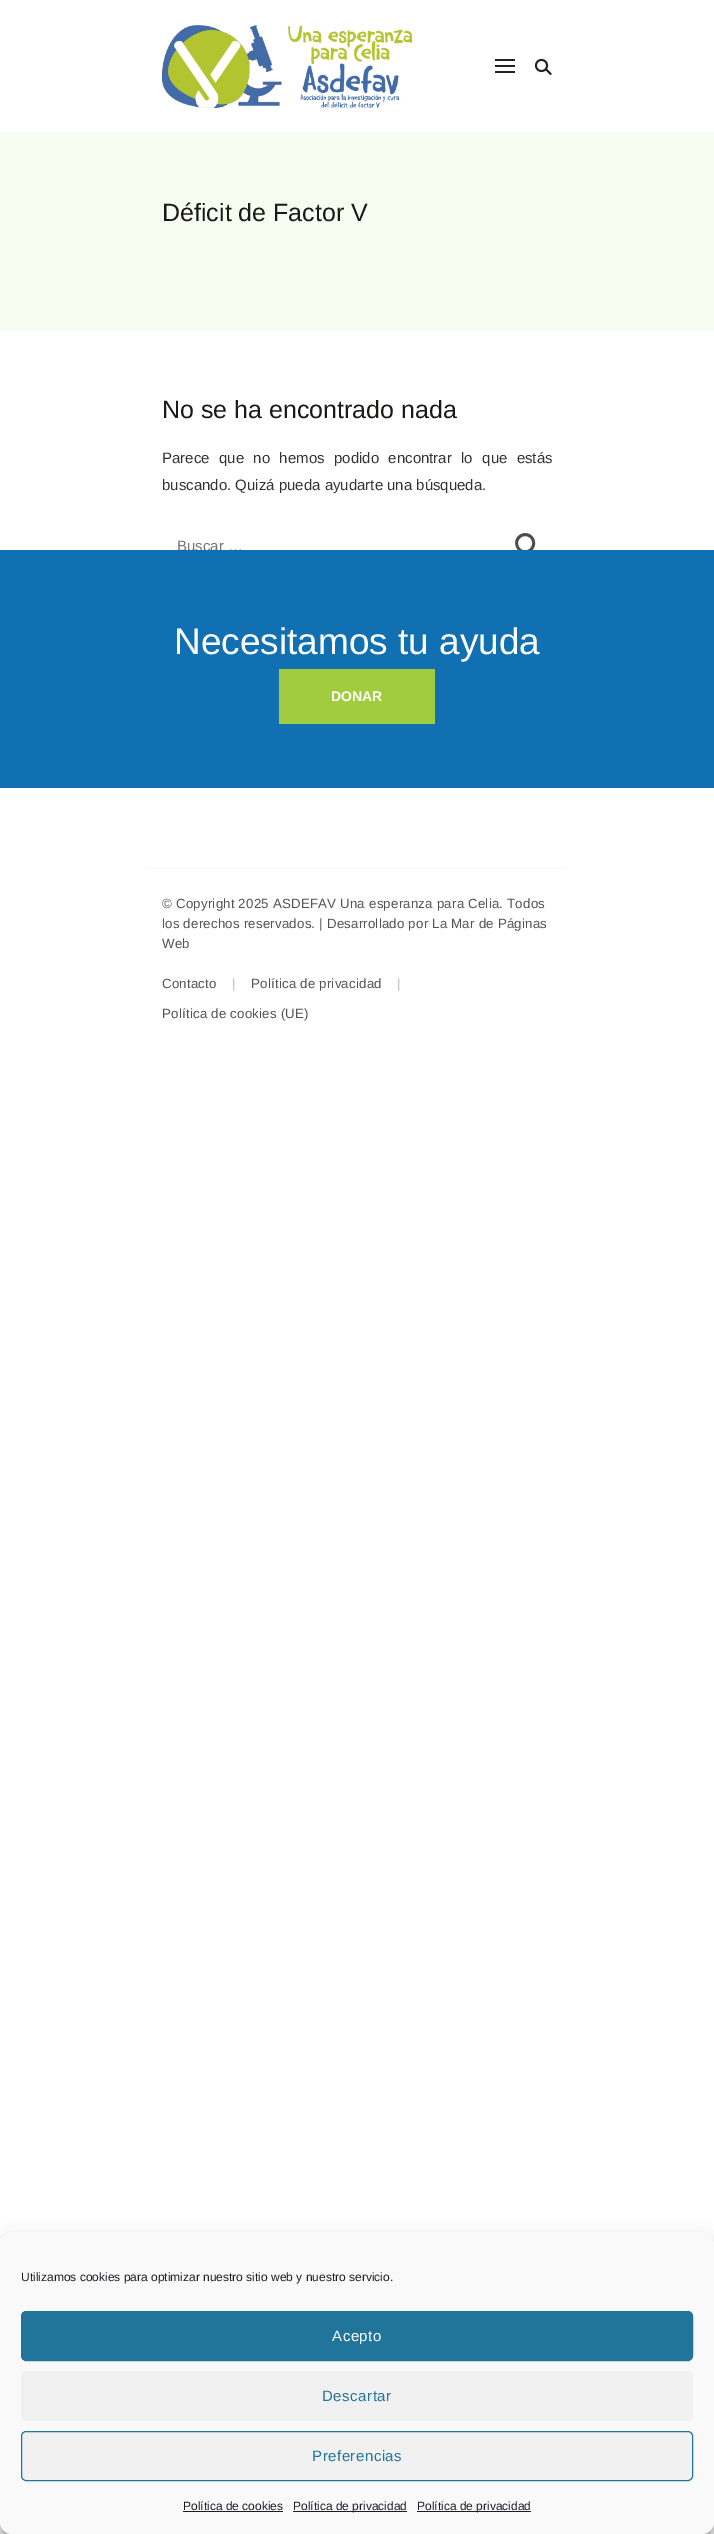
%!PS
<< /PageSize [714 2534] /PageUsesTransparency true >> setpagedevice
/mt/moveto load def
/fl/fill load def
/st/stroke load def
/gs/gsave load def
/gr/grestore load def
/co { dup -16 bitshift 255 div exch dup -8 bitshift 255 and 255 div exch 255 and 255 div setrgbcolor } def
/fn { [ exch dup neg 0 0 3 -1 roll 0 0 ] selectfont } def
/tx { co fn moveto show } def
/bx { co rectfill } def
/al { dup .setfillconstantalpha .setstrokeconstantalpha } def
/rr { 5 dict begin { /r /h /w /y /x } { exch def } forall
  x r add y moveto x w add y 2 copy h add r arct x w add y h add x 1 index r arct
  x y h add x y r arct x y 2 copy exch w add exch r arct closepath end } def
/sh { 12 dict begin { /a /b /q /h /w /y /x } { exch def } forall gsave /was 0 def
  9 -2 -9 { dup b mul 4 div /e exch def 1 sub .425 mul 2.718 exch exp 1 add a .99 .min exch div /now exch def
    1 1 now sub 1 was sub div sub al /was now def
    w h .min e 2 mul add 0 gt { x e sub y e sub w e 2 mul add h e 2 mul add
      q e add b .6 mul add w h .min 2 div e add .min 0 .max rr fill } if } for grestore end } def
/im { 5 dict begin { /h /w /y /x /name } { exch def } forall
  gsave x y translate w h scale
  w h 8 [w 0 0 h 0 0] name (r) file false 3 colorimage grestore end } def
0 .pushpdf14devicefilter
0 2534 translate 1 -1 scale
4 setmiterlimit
0 0 714 2534 16#FFFFFF bx
0 133 714 1 16#F6FAEC bx
(media/1.raw) 162 25 250 83 im
495 59 20 2 16#232323 bx
495 65 20 2 16#232323 bx
495 71 20 2 16#232323 bx
(media/2.raw) 534 58 18 17 im
0 134 714 197 16#F8FBF0 bx
(media/3.raw) 515 533 21 17 im
147 868 420 1 16#F5F6F7 bx
16#000000 co
0 2238 714 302 12 3 .23 sh
0 2242 714 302 12 10 .19 sh
16#F9F9F9 co
.5 2232.5 713 301 11.5 rr gs fl gr
st
16#21759B co
21.5 2311.5 671 49 4.5 rr gs fl gr
st
16#F1F1F1 co
21 2371 672 50 5 rr fl
21.5 2431.5 671 49 4.5 rr gs fl gr
16#21759B co
st
183 2511 100 1 16#191E23 bx
293 2511 114 1 16#191E23 bx
417 2511 114 1 16#191E23 bx
(Déficit de Factor V) 162 221 /LiberationSans-Regular 25 16#191918 tx
(No se ha encontrado nada) 162 418 /LiberationSans-Regular 25 16#191918 tx
/LiberationSans-Regular 15 fn
16#333333 co
162 463 mt 5.25 0 32 (Parece que no hemos podido encontrar lo que estás) widthshow
(buscando. Quizá pueda ayudarte una búsqueda.) 162 490 /LiberationSans-Regular 15 16#333333 tx
(Buscar …) 177 551 /LiberationSans-Regular 15 16#757575 tx
0 550 714 238 16#1170B2 bx
(Necesitamos tu ayuda) 174 654 /LiberationSans-Regular 37 16#FFFFFF tx
279 669 156 55 16#A1CC3E bx
(DONAR) 331 701 /LiberationSans-Bold 14 16#FFFFFF tx
/LiberationSans-Regular 13.3 fn
16#535353 co
162 908 mt .2 0 (© Copyright 2025 ASDEFAV Una esperanza para Celia. Todos) ashow
162 928 mt .2 0 (los derechos reservados. | Desarrollado por La Mar de Páginas) ashow
162 948 mt .2 0 (Web) ashow
162 988 mt .2 0 (Contacto) ashow
16#B3B3B3 co
232 988 mt .2 0 (|) ashow
16#535353 co
251 988 mt .2 0 (Política de privacidad) ashow
16#B3B3B3 co
397 988 mt .2 0 (|) ashow
16#535353 co
162 1018 mt .2 0 (Política de cookies \(UE\)) ashow
(Utilizamos cookies para optimizar nuestro sitio web y nuestro servicio.) 21 2281 /LiberationSans-Regular 12 16#191E23 tx
/LiberationSans-Regular 15 fn
16#FFFFFF co
332 2341 mt .5 0 (Acepto) ashow
16#21759B co
322 2401 mt .5 0 (Descartar) ashow
312 2461 mt .5 0 (Preferencias) ashow
(Política de cookies) 183 2510 /LiberationSans-Regular 12 16#191E23 tx
(Política de privacidad) 293 2510 /LiberationSans-Regular 12 16#191E23 tx
(Política de privacidad) 417 2510 /LiberationSans-Regular 12 16#191E23 tx
.poppdf14devicefilter showpage
